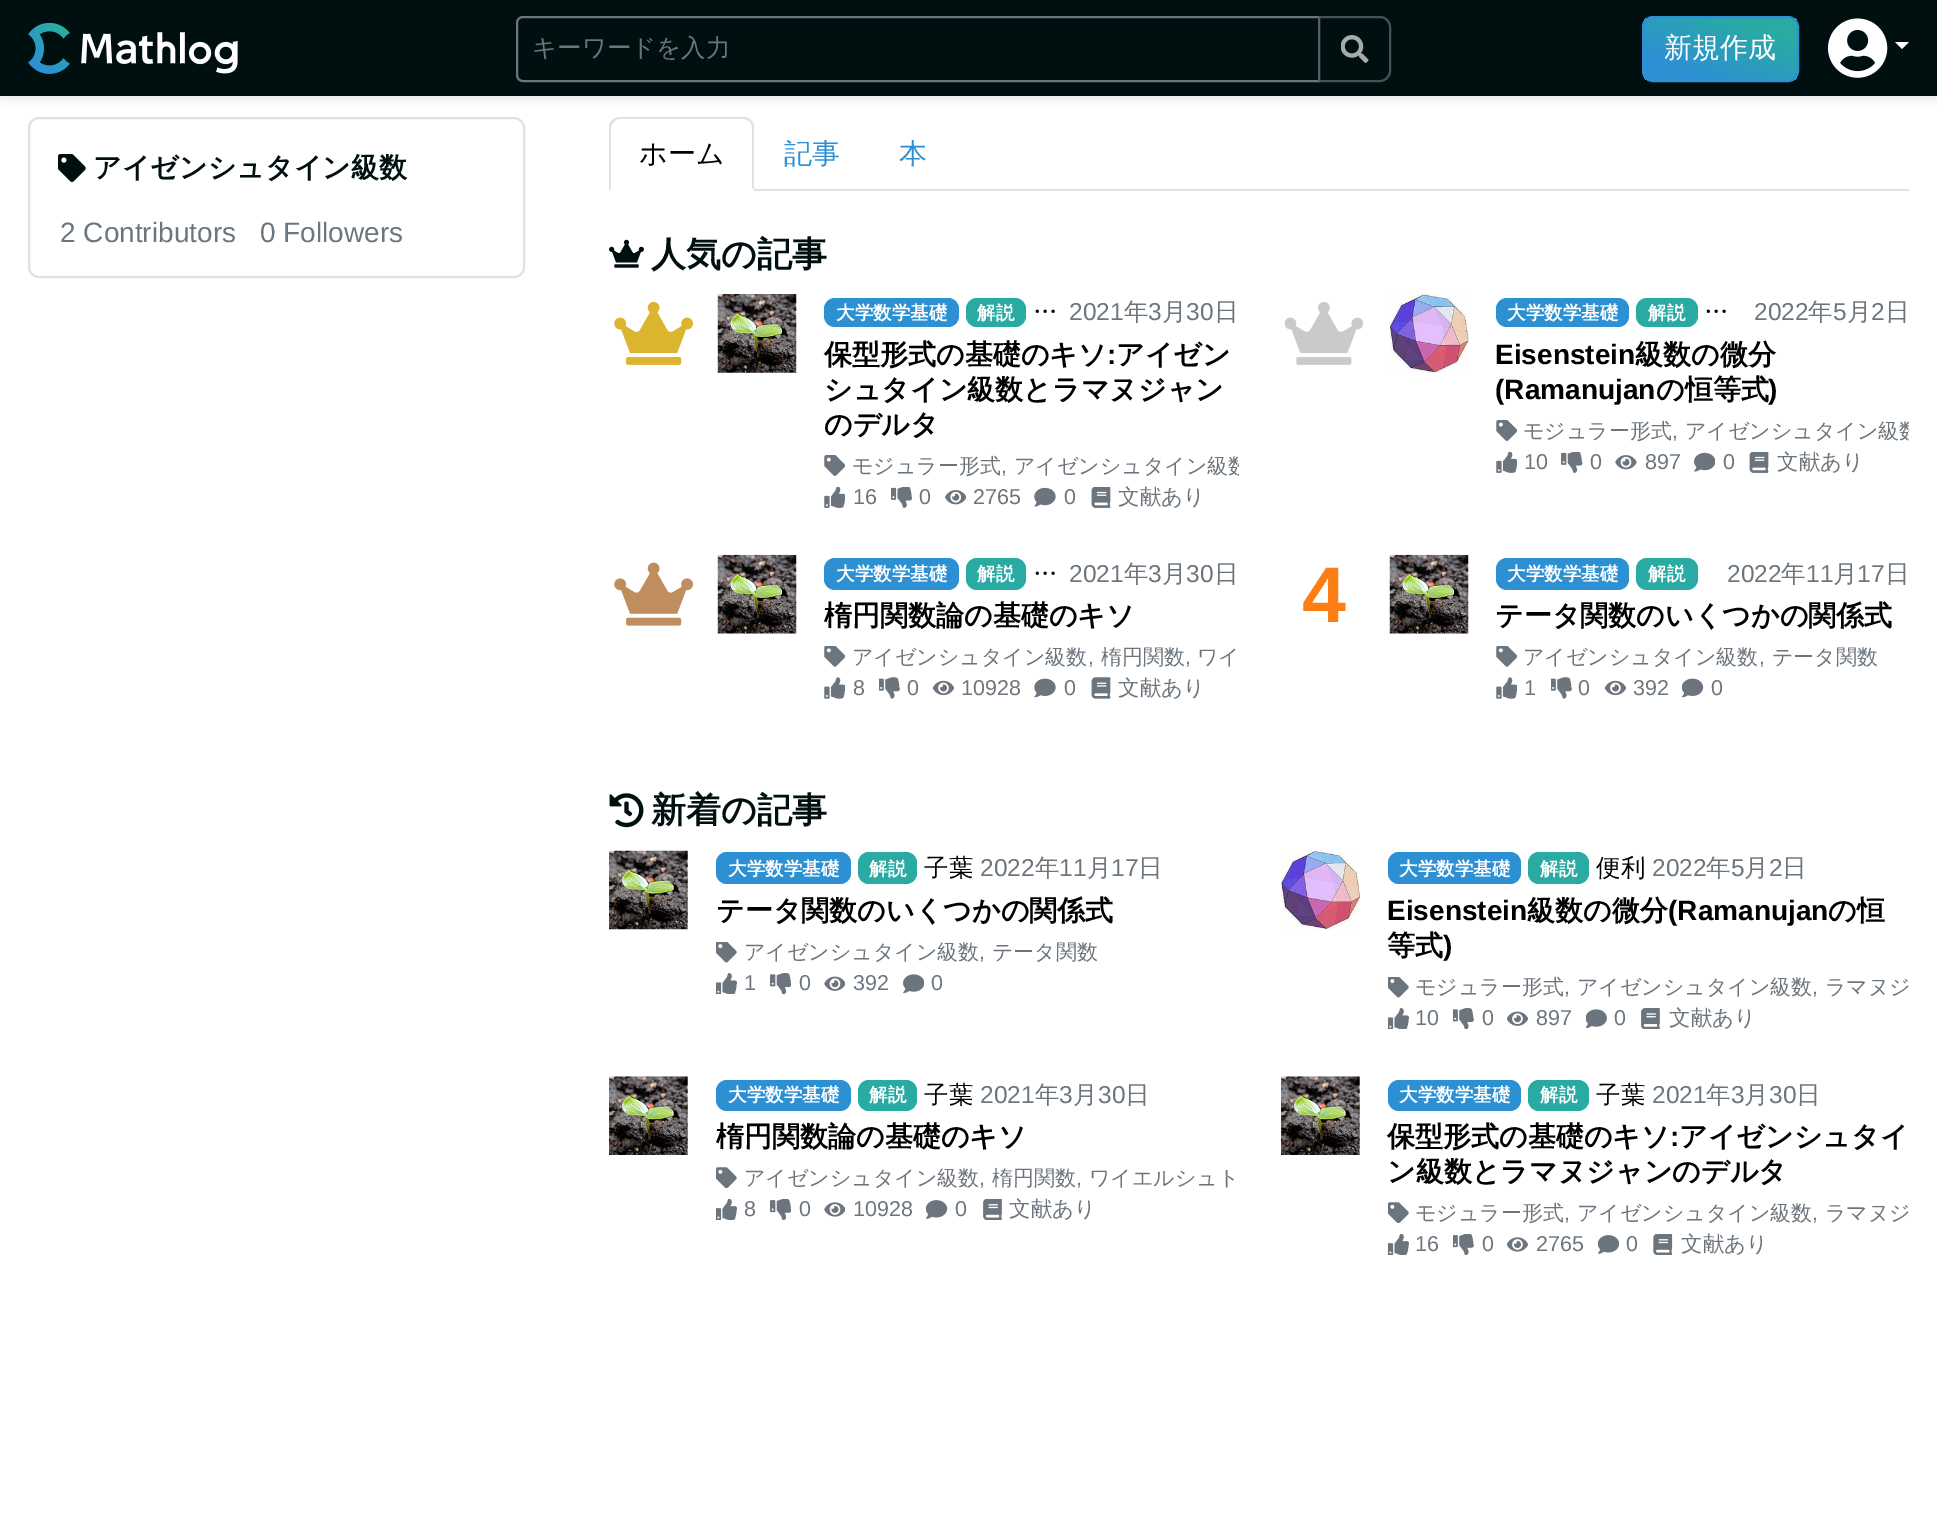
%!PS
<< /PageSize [1937 1516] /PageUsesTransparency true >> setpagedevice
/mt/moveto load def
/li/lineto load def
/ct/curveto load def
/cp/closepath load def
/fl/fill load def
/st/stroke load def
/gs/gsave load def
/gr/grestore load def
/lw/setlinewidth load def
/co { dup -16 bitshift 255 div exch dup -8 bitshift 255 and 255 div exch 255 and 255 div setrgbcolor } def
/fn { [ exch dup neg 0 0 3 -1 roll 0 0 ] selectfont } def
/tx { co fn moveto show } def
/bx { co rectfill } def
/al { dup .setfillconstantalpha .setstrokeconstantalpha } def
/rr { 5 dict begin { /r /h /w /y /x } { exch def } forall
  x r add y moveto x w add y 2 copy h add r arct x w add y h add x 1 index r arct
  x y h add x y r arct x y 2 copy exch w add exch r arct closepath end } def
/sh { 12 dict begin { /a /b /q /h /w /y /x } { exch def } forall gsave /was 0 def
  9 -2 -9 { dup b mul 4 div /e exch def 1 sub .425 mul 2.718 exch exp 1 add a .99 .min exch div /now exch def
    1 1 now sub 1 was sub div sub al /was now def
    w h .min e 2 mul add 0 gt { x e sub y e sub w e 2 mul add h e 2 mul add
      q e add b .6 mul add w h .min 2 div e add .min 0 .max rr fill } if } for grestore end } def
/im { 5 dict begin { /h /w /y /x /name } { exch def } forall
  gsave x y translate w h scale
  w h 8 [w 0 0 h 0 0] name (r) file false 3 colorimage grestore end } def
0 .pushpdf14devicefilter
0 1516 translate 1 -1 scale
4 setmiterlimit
0 0 1937 1516 16#FFFFFF bx
16#000000 co
0 4 1937 96 0 3.5 .07 sh
0 0 1937 96 16#001010 bx
(media/1.raw) 28 23 210 51 im
16#6C757D co
2 lw
523 17 mt 1319 17 li 1319 81 li 523 81 li 519.5 81 517 78.5 517 75 ct 517 23 li 517 19.5 519.5 17 523 17 ct cp st
0.65 al
16#001010 co
1318 16 mt 1380 16 li 1386 16 1391 21 1391 27 ct 1391 71 li 1391 77 1386 82 1380 82 ct 1318 82 li cp fl
16#6C757D co
1319 17 mt 1380 17 li 1385.5 17 1390 21.5 1390 27 ct 1390 71 li 1390 76.5 1385.5 81 1380 81 ct 1319 81 li cp st
1 al
(media/2.raw) 1341 35 28 28 im
gs
1642 16 157 66 11 rr clip newpath
gs 1643 18 mt 1797 18 li 1797 81 li 1643 81 li cp clip newpath
<< /ShadingType 2 /ColorSpace /DeviceRGB /Coords [1698 103 1742 -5] /Extend [true true] /Function << /FunctionType 3 /Domain [0 1] /Functions [<< /FunctionType 2 /Domain [0 1] /C0 [.173 .565 .827] /C1 [.173 .565 .827] /N 1 >> << /FunctionType 2 /Domain [0 1] /C0 [.173 .565 .827] /C1 [.161 .671 .643] /N 1 >> << /FunctionType 2 /Domain [0 1] /C0 [.161 .671 .643] /C1 [.161 .671 .643] /N 1 >>] /Bounds [.2 .8] /Encode [0 1 0 1 0 1] >> >> shfill gr
gr
16#2C90D3 co
1643 17 155 64 10 rr st
(media/3.raw) 1827 18 61 60 im
16#FFFFFF co
1895 42 mt 1909 42 li 1902 49 li cp fl
16#DEE2E6 co
29 118 495 159 10 rr st
(media/4.raw) 58 154 28 28 im
754 189 1155 2 16#DEE2E6 bx
620 119 mt 617 119 615 120 614 122 ct 612 120 li 614 119 616 118 618 117 ct 746 117 li 748 118 750 119 751 120 ct 750 122 li 748 120 746 119 744 119 ct cp fl
751 120 mt 753 122 754 125 754 128 ct 754 190 li 752 188 li 752 128 li 752 126 751 123 750 122 ct cp fl
16#FFFFFF co
754 191 mt 609 191 li 611 189 li 752 189 li 752 188 li cp fl
16#DEE2E6 co
609 191 mt 611 189 li 611 128 li 611 126 612 123 614 122 ct 612 120 li 610 122 609 125 609 128 ct cp fl
(media/5.raw) 609 239 35 29 im
(media/6.raw) 614 301 79 64 im
(media/7.raw) 717 294 80 79 im
16#2C90D3 co
824 298 135 29 11 rr fl
16#29ABA4 co
966 298 60 29 11 rr fl
(media/8.raw) 824 455 21 21 im
(media/9.raw) 824 487 21 21 im
(media/10.raw) 891 487 21 21 im
(media/11.raw) 945 490 21 15 im
(media/12.raw) 1034 487 22 20 im
(media/13.raw) 1091 487 20 21 im
(media/14.raw) 1285 301 78 64 im
(media/15.raw) 1389 294 80 79 im
16#2C90D3 co
1496 298 133 29 11 rr fl
16#29ABA4 co
1636 298 62 29 11 rr fl
(media/8.raw) 1496 420 21 21 im
(media/9.raw) 1496 452 21 21 im
(media/16.raw) 1561 452 22 21 im
(media/17.raw) 1615 455 22 15 im
(media/18.raw) 1694 452 21 20 im
(media/13.raw) 1749 452 20 21 im
(media/19.raw) 614 562 79 64 im
(media/20.raw) 717 554 80 80 im
16#2C90D3 co
824 558 135 32 11 rr fl
16#29ABA4 co
966 558 60 32 11 rr fl
(media/21.raw) 824 646 21 21 im
(media/22.raw) 824 677 21 22 im
(media/23.raw) 879 677 21 22 im
(media/24.raw) 933 680 21 16 im
(media/25.raw) 1034 678 22 20 im
(media/26.raw) 1091 677 20 22 im
(media/20.raw) 1389 554 80 80 im
16#2C90D3 co
1496 558 133 32 11 rr fl
16#29ABA4 co
1636 558 62 32 11 rr fl
(media/21.raw) 1496 646 21 21 im
(media/22.raw) 1496 677 21 22 im
(media/23.raw) 1551 677 21 22 im
(media/24.raw) 1605 680 21 16 im
(media/27.raw) 1682 678 22 20 im
(media/28.raw) 609 793 35 35 im
(media/29.raw) 609 850 79 80 im
16#2C90D3 co
716 852 135 32 11 rr fl
16#29ABA4 co
858 852 59 32 11 rr fl
(media/30.raw) 716 942 21 21 im
(media/31.raw) 716 973 21 21 im
(media/32.raw) 770 973 21 21 im
(media/33.raw) 824 976 21 15 im
(media/34.raw) 903 974 21 20 im
(media/35.raw) 1281 850 79 80 im
16#2C90D3 co
1388 852 133 32 11 rr fl
16#29ABA4 co
1528 852 61 32 11 rr fl
(media/30.raw) 1388 977 21 21 im
(media/31.raw) 1388 1008 21 21 im
(media/36.raw) 1453 1008 21 21 im
(media/37.raw) 1507 1011 22 15 im
(media/38.raw) 1586 1009 21 20 im
(media/39.raw) 1641 1008 19 21 im
(media/40.raw) 609 1076 79 79 im
16#2C90D3 co
716 1080 135 31 11 rr fl
16#29ABA4 co
858 1080 59 31 11 rr fl
(media/41.raw) 716 1167 21 21 im
(media/42.raw) 716 1199 21 21 im
(media/43.raw) 770 1199 21 21 im
(media/44.raw) 824 1202 21 15 im
(media/45.raw) 926 1200 22 19 im
(media/46.raw) 983 1199 19 21 im
(media/40.raw) 1281 1076 79 79 im
16#2C90D3 co
1388 1080 133 31 11 rr fl
16#29ABA4 co
1528 1080 61 31 11 rr fl
(media/41.raw) 1388 1202 21 21 im
(media/42.raw) 1388 1234 21 21 im
(media/47.raw) 1453 1234 21 21 im
(media/48.raw) 1507 1237 22 15 im
(media/49.raw) 1598 1235 21 19 im
(media/50.raw) 1653 1234 20 21 im
(キーワードを入力) 532 56 /WenQuanYiZenHei-Medium 24.5 16#6C757D tx
(新規作成) 1664 57 /WenQuanYiZenHei-Medium 28 16#FFFFFF tx
(アイゼンシュタイン級数) 93 177 /WenQuanYiZenHei-Bold 28 16#001010 tx
(2 Contributors) 60 242 /LiberationSans-Regular 28 16#6C757D tx
(0 Followers) 260 242 /LiberationSans-Regular 28 16#6C757D tx
(ホーム) 639 163 /WenQuanYiZenHei-Medium 28 16#000000 tx
(記事) 784 163 /WenQuanYiZenHei-Medium 28 16#2C90D3 tx
(本) 899 163 /WenQuanYiZenHei-Medium 28 16#2C90D3 tx
(人気の記事) 651 266 /WenQuanYiZenHei-Bold 35 16#001010 tx
(大学数学基礎) 836 319 /WenQuanYiZenHei-Bold 18.5 16#FFFFFF tx
(解説) 977 319 /WenQuanYiZenHei-Bold 18.5 16#FFFFFF tx
(…) 1033 320 /WenQuanYiZenHei-Medium 24.5 16#000000 tx
(2021) 1069 320 /LiberationSans-Regular 24.5 16#6C757D tx
(年) 1124 320 /WenQuanYiZenHei-Medium 24.5 16#6C757D tx
(3) 1148 320 /LiberationSans-Regular 24.5 16#6C757D tx
(月) 1162 320 /WenQuanYiZenHei-Medium 24.5 16#6C757D tx
(30) 1186 320 /LiberationSans-Regular 24.5 16#6C757D tx
(日) 1214 320 /WenQuanYiZenHei-Medium 24.5 16#6C757D tx
(保型形式の基礎のキソ) 824 364 /WenQuanYiZenHei-Bold 28 16#000000 tx
(:) 1107 364 /LiberationSans-Bold 28 16#000000 tx
(アイゼン) 1116 364 /WenQuanYiZenHei-Bold 28 16#000000 tx
(シュタイン級数とラマヌジャン) 824 399 /WenQuanYiZenHei-Bold 28 16#000000 tx
(のデルタ) 824 434 /WenQuanYiZenHei-Bold 28 16#000000 tx
(モジュラー形式) 852 473 /WenQuanYiZenHei-Medium 21 16#6C757D tx
(,) 1001 473 /LiberationSans-Regular 21 16#6C757D tx
gs
852 450 387 31 rectclip
(アイゼンシュタイン級数) 1014 473 /WenQuanYiZenHei-Medium 21 16#6C757D tx
gr
(16) 853 504 /LiberationSans-Regular 21.5 16#6C757D tx
(0) 919 504 /LiberationSans-Regular 21.5 16#6C757D tx
(2765) 973 504 /LiberationSans-Regular 21.5 16#6C757D tx
(0) 1064 504 /LiberationSans-Regular 21.5 16#6C757D tx
(文献あり) 1118 504 /WenQuanYiZenHei-Medium 21.5 16#6C757D tx
(大学数学基礎) 1507 319 /WenQuanYiZenHei-Bold 18.5 16#FFFFFF tx
(解説) 1648 319 /WenQuanYiZenHei-Bold 18.5 16#FFFFFF tx
(…) 1704 320 /WenQuanYiZenHei-Medium 24.5 16#000000 tx
(2022) 1754 320 /LiberationSans-Regular 24.5 16#6C757D tx
(年) 1808 320 /WenQuanYiZenHei-Medium 24.5 16#6C757D tx
(5) 1833 320 /LiberationSans-Regular 24.5 16#6C757D tx
(月) 1847 320 /WenQuanYiZenHei-Medium 24.5 16#6C757D tx
(2) 1871 320 /LiberationSans-Regular 24.5 16#6C757D tx
(日) 1885 320 /WenQuanYiZenHei-Medium 24.5 16#6C757D tx
(Eisenstein) 1495 364 /LiberationSans-Bold 28 16#000000 tx
(級数の微分) 1635 364 /WenQuanYiZenHei-Bold 28 16#000000 tx
(\(Ramanujan) 1495 399 /LiberationSans-Bold 28 16#000000 tx
(の恒等式) 1656 399 /WenQuanYiZenHei-Bold 28 16#000000 tx
(\)) 1768 399 /LiberationSans-Bold 28 16#000000 tx
(モジュラー形式) 1523 438 /WenQuanYiZenHei-Medium 21 16#6C757D tx
(,) 1672 438 /LiberationSans-Regular 21 16#6C757D tx
gs
1524 415 385 31 rectclip
(アイゼンシュタイン級数) 1685 438 /WenQuanYiZenHei-Medium 21 16#6C757D tx
gr
(10) 1524 469 /LiberationSans-Regular 21.5 16#6C757D tx
(0) 1590 469 /LiberationSans-Regular 21.5 16#6C757D tx
(897) 1645 469 /LiberationSans-Regular 21.5 16#6C757D tx
(0) 1723 469 /LiberationSans-Regular 21.5 16#6C757D tx
(文献あり) 1777 469 /WenQuanYiZenHei-Medium 21.5 16#6C757D tx
(大学数学基礎) 836 580 /WenQuanYiZenHei-Bold 18.5 16#FFFFFF tx
(解説) 977 580 /WenQuanYiZenHei-Bold 18.5 16#FFFFFF tx
(…) 1033 582 /WenQuanYiZenHei-Medium 24.5 16#000000 tx
(2021) 1069 582 /LiberationSans-Regular 24.5 16#6C757D tx
(年) 1124 582 /WenQuanYiZenHei-Medium 24.5 16#6C757D tx
(3) 1148 582 /LiberationSans-Regular 24.5 16#6C757D tx
(月) 1162 582 /WenQuanYiZenHei-Medium 24.5 16#6C757D tx
(30) 1186 582 /LiberationSans-Regular 24.5 16#6C757D tx
(日) 1214 582 /WenQuanYiZenHei-Medium 24.5 16#6C757D tx
(楕円関数論の基礎のキソ) 824 625 /WenQuanYiZenHei-Bold 28 16#000000 tx
(アイゼンシュタイン級数) 852 664 /WenQuanYiZenHei-Medium 21 16#6C757D tx
(,) 1088 664 /LiberationSans-Regular 21 16#6C757D tx
(楕円関数) 1101 664 /WenQuanYiZenHei-Medium 21 16#6C757D tx
(,) 1185 664 /LiberationSans-Regular 21 16#6C757D tx
(ワイ) 1197 664 /WenQuanYiZenHei-Medium 21 16#6C757D tx
(8) 853 695 /LiberationSans-Regular 21.5 16#6C757D tx
(0) 907 695 /LiberationSans-Regular 21.5 16#6C757D tx
(10928) 961 695 /LiberationSans-Regular 21.5 16#6C757D tx
(0) 1064 695 /LiberationSans-Regular 21.5 16#6C757D tx
(文献あり) 1118 695 /WenQuanYiZenHei-Medium 21.5 16#6C757D tx
(4) 1302 622 /LiberationSans-Bold 79 16#FD7E14 tx
(大学数学基礎) 1507 580 /WenQuanYiZenHei-Bold 18.5 16#FFFFFF tx
(解説) 1648 580 /WenQuanYiZenHei-Bold 18.5 16#FFFFFF tx
(2022) 1727 582 /LiberationSans-Regular 24.5 16#6C757D tx
(年) 1781 582 /WenQuanYiZenHei-Medium 24.5 16#6C757D tx
(11) 1806 582 /LiberationSans-Regular 24.5 16#6C757D tx
(月) 1833 582 /WenQuanYiZenHei-Medium 24.5 16#6C757D tx
(17) 1857 582 /LiberationSans-Regular 24.5 16#6C757D tx
(日) 1885 582 /WenQuanYiZenHei-Medium 24.5 16#6C757D tx
(テータ関数のいくつかの関係式) 1495 625 /WenQuanYiZenHei-Bold 28 16#000000 tx
(アイゼンシュタイン級数) 1523 664 /WenQuanYiZenHei-Medium 21 16#6C757D tx
(,) 1759 664 /LiberationSans-Regular 21 16#6C757D tx
(テータ関数) 1772 664 /WenQuanYiZenHei-Medium 21 16#6C757D tx
(1) 1524 695 /LiberationSans-Regular 21.5 16#6C757D tx
(0) 1578 695 /LiberationSans-Regular 21.5 16#6C757D tx
(392) 1633 695 /LiberationSans-Regular 21.5 16#6C757D tx
(0) 1711 695 /LiberationSans-Regular 21.5 16#6C757D tx
(新着の記事) 651 822 /WenQuanYiZenHei-Bold 35 16#001010 tx
(大学数学基礎) 728 875 /WenQuanYiZenHei-Bold 18.5 16#FFFFFF tx
(解説) 869 875 /WenQuanYiZenHei-Bold 18.5 16#FFFFFF tx
(子葉) 924 876 /WenQuanYiZenHei-Medium 24.5 16#000000 tx
(2022) 980 876 /LiberationSans-Regular 24.5 16#6C757D tx
(年) 1035 876 /WenQuanYiZenHei-Medium 24.5 16#6C757D tx
(11) 1059 876 /LiberationSans-Regular 24.5 16#6C757D tx
(月) 1087 876 /WenQuanYiZenHei-Medium 24.5 16#6C757D tx
(17) 1111 876 /LiberationSans-Regular 24.5 16#6C757D tx
(日) 1138 876 /WenQuanYiZenHei-Medium 24.5 16#6C757D tx
(テータ関数のいくつかの関係式) 716 920 /WenQuanYiZenHei-Bold 28 16#000000 tx
(アイゼンシュタイン級数) 744 959 /WenQuanYiZenHei-Medium 21 16#6C757D tx
(,) 979 959 /LiberationSans-Regular 21 16#6C757D tx
(テータ関数) 992 959 /WenQuanYiZenHei-Medium 21 16#6C757D tx
(1) 744 990 /LiberationSans-Regular 21.5 16#6C757D tx
(0) 799 990 /LiberationSans-Regular 21.5 16#6C757D tx
(392) 853 990 /LiberationSans-Regular 21.5 16#6C757D tx
(0) 931 990 /LiberationSans-Regular 21.5 16#6C757D tx
(大学数学基礎) 1399 875 /WenQuanYiZenHei-Bold 18.5 16#FFFFFF tx
(解説) 1540 875 /WenQuanYiZenHei-Bold 18.5 16#FFFFFF tx
(便利) 1596 876 /WenQuanYiZenHei-Medium 24.5 16#000000 tx
(2022) 1652 876 /LiberationSans-Regular 24.5 16#6C757D tx
(年) 1706 876 /WenQuanYiZenHei-Medium 24.5 16#6C757D tx
(5) 1731 876 /LiberationSans-Regular 24.5 16#6C757D tx
(月) 1744 876 /WenQuanYiZenHei-Medium 24.5 16#6C757D tx
(2) 1769 876 /LiberationSans-Regular 24.5 16#6C757D tx
(日) 1782 876 /WenQuanYiZenHei-Medium 24.5 16#6C757D tx
(Eisenstein) 1387 920 /LiberationSans-Bold 28 16#000000 tx
(級数の微分) 1527 920 /WenQuanYiZenHei-Bold 28 16#000000 tx
(\(Ramanujan) 1668 920 /LiberationSans-Bold 28 16#000000 tx
(の恒) 1828 920 /WenQuanYiZenHei-Bold 28 16#000000 tx
(等式) 1387 955 /WenQuanYiZenHei-Bold 28 16#000000 tx
(\)) 1443 955 /LiberationSans-Bold 28 16#000000 tx
(モジュラー形式) 1415 994 /WenQuanYiZenHei-Medium 21 16#6C757D tx
(,) 1564 994 /LiberationSans-Regular 21 16#6C757D tx
(アイゼンシュタイン級数) 1577 994 /WenQuanYiZenHei-Medium 21 16#6C757D tx
(,) 1812 994 /LiberationSans-Regular 21 16#6C757D tx
(ラマヌジ) 1825 994 /WenQuanYiZenHei-Medium 21 16#6C757D tx
(10) 1415 1025 /LiberationSans-Regular 21.5 16#6C757D tx
(0) 1482 1025 /LiberationSans-Regular 21.5 16#6C757D tx
(897) 1536 1025 /LiberationSans-Regular 21.5 16#6C757D tx
(0) 1614 1025 /LiberationSans-Regular 21.5 16#6C757D tx
(文献あり) 1669 1025 /WenQuanYiZenHei-Medium 21.5 16#6C757D tx
(大学数学基礎) 728 1101 /WenQuanYiZenHei-Bold 18.5 16#FFFFFF tx
(解説) 869 1101 /WenQuanYiZenHei-Bold 18.5 16#FFFFFF tx
(子葉) 924 1103 /WenQuanYiZenHei-Medium 24.5 16#000000 tx
(2021) 980 1103 /LiberationSans-Regular 24.5 16#6C757D tx
(年) 1035 1103 /WenQuanYiZenHei-Medium 24.5 16#6C757D tx
(3) 1059 1103 /LiberationSans-Regular 24.5 16#6C757D tx
(月) 1073 1103 /WenQuanYiZenHei-Medium 24.5 16#6C757D tx
(30) 1098 1103 /LiberationSans-Regular 24.5 16#6C757D tx
(日) 1125 1103 /WenQuanYiZenHei-Medium 24.5 16#6C757D tx
(楕円関数論の基礎のキソ) 716 1146 /WenQuanYiZenHei-Bold 28 16#000000 tx
(アイゼンシュタイン級数) 744 1185 /WenQuanYiZenHei-Medium 21 16#6C757D tx
(,) 979 1185 /LiberationSans-Regular 21 16#6C757D tx
(楕円関数) 992 1185 /WenQuanYiZenHei-Medium 21 16#6C757D tx
(,) 1076 1185 /LiberationSans-Regular 21 16#6C757D tx
(ワイエルシュト) 1089 1185 /WenQuanYiZenHei-Medium 21 16#6C757D tx
(8) 744 1216 /LiberationSans-Regular 21.5 16#6C757D tx
(0) 799 1216 /LiberationSans-Regular 21.5 16#6C757D tx
(10928) 853 1216 /LiberationSans-Regular 21.5 16#6C757D tx
(0) 955 1216 /LiberationSans-Regular 21.5 16#6C757D tx
(文献あり) 1009 1216 /WenQuanYiZenHei-Medium 21.5 16#6C757D tx
(大学数学基礎) 1399 1101 /WenQuanYiZenHei-Bold 18.5 16#FFFFFF tx
(解説) 1540 1101 /WenQuanYiZenHei-Bold 18.5 16#FFFFFF tx
(子葉) 1596 1103 /WenQuanYiZenHei-Medium 24.5 16#000000 tx
(2021) 1652 1103 /LiberationSans-Regular 24.5 16#6C757D tx
(年) 1706 1103 /WenQuanYiZenHei-Medium 24.5 16#6C757D tx
(3) 1731 1103 /LiberationSans-Regular 24.5 16#6C757D tx
(月) 1744 1103 /WenQuanYiZenHei-Medium 24.5 16#6C757D tx
(30) 1769 1103 /LiberationSans-Regular 24.5 16#6C757D tx
(日) 1796 1103 /WenQuanYiZenHei-Medium 24.5 16#6C757D tx
(保型形式の基礎のキソ) 1387 1146 /WenQuanYiZenHei-Bold 28 16#000000 tx
(:) 1670 1146 /LiberationSans-Bold 28 16#000000 tx
(アイゼンシュタイ) 1679 1146 /WenQuanYiZenHei-Bold 28 16#000000 tx
(ン級数とラマヌジャンのデルタ) 1387 1181 /WenQuanYiZenHei-Bold 28 16#000000 tx
(モジュラー形式) 1415 1220 /WenQuanYiZenHei-Medium 21 16#6C757D tx
(,) 1564 1220 /LiberationSans-Regular 21 16#6C757D tx
(アイゼンシュタイン級数) 1577 1220 /WenQuanYiZenHei-Medium 21 16#6C757D tx
(,) 1812 1220 /LiberationSans-Regular 21 16#6C757D tx
(ラマヌジ) 1825 1220 /WenQuanYiZenHei-Medium 21 16#6C757D tx
(16) 1415 1251 /LiberationSans-Regular 21.5 16#6C757D tx
(0) 1482 1251 /LiberationSans-Regular 21.5 16#6C757D tx
(2765) 1536 1251 /LiberationSans-Regular 21.5 16#6C757D tx
(0) 1626 1251 /LiberationSans-Regular 21.5 16#6C757D tx
(文献あり) 1681 1251 /WenQuanYiZenHei-Medium 21.5 16#6C757D tx
.poppdf14devicefilter showpage
